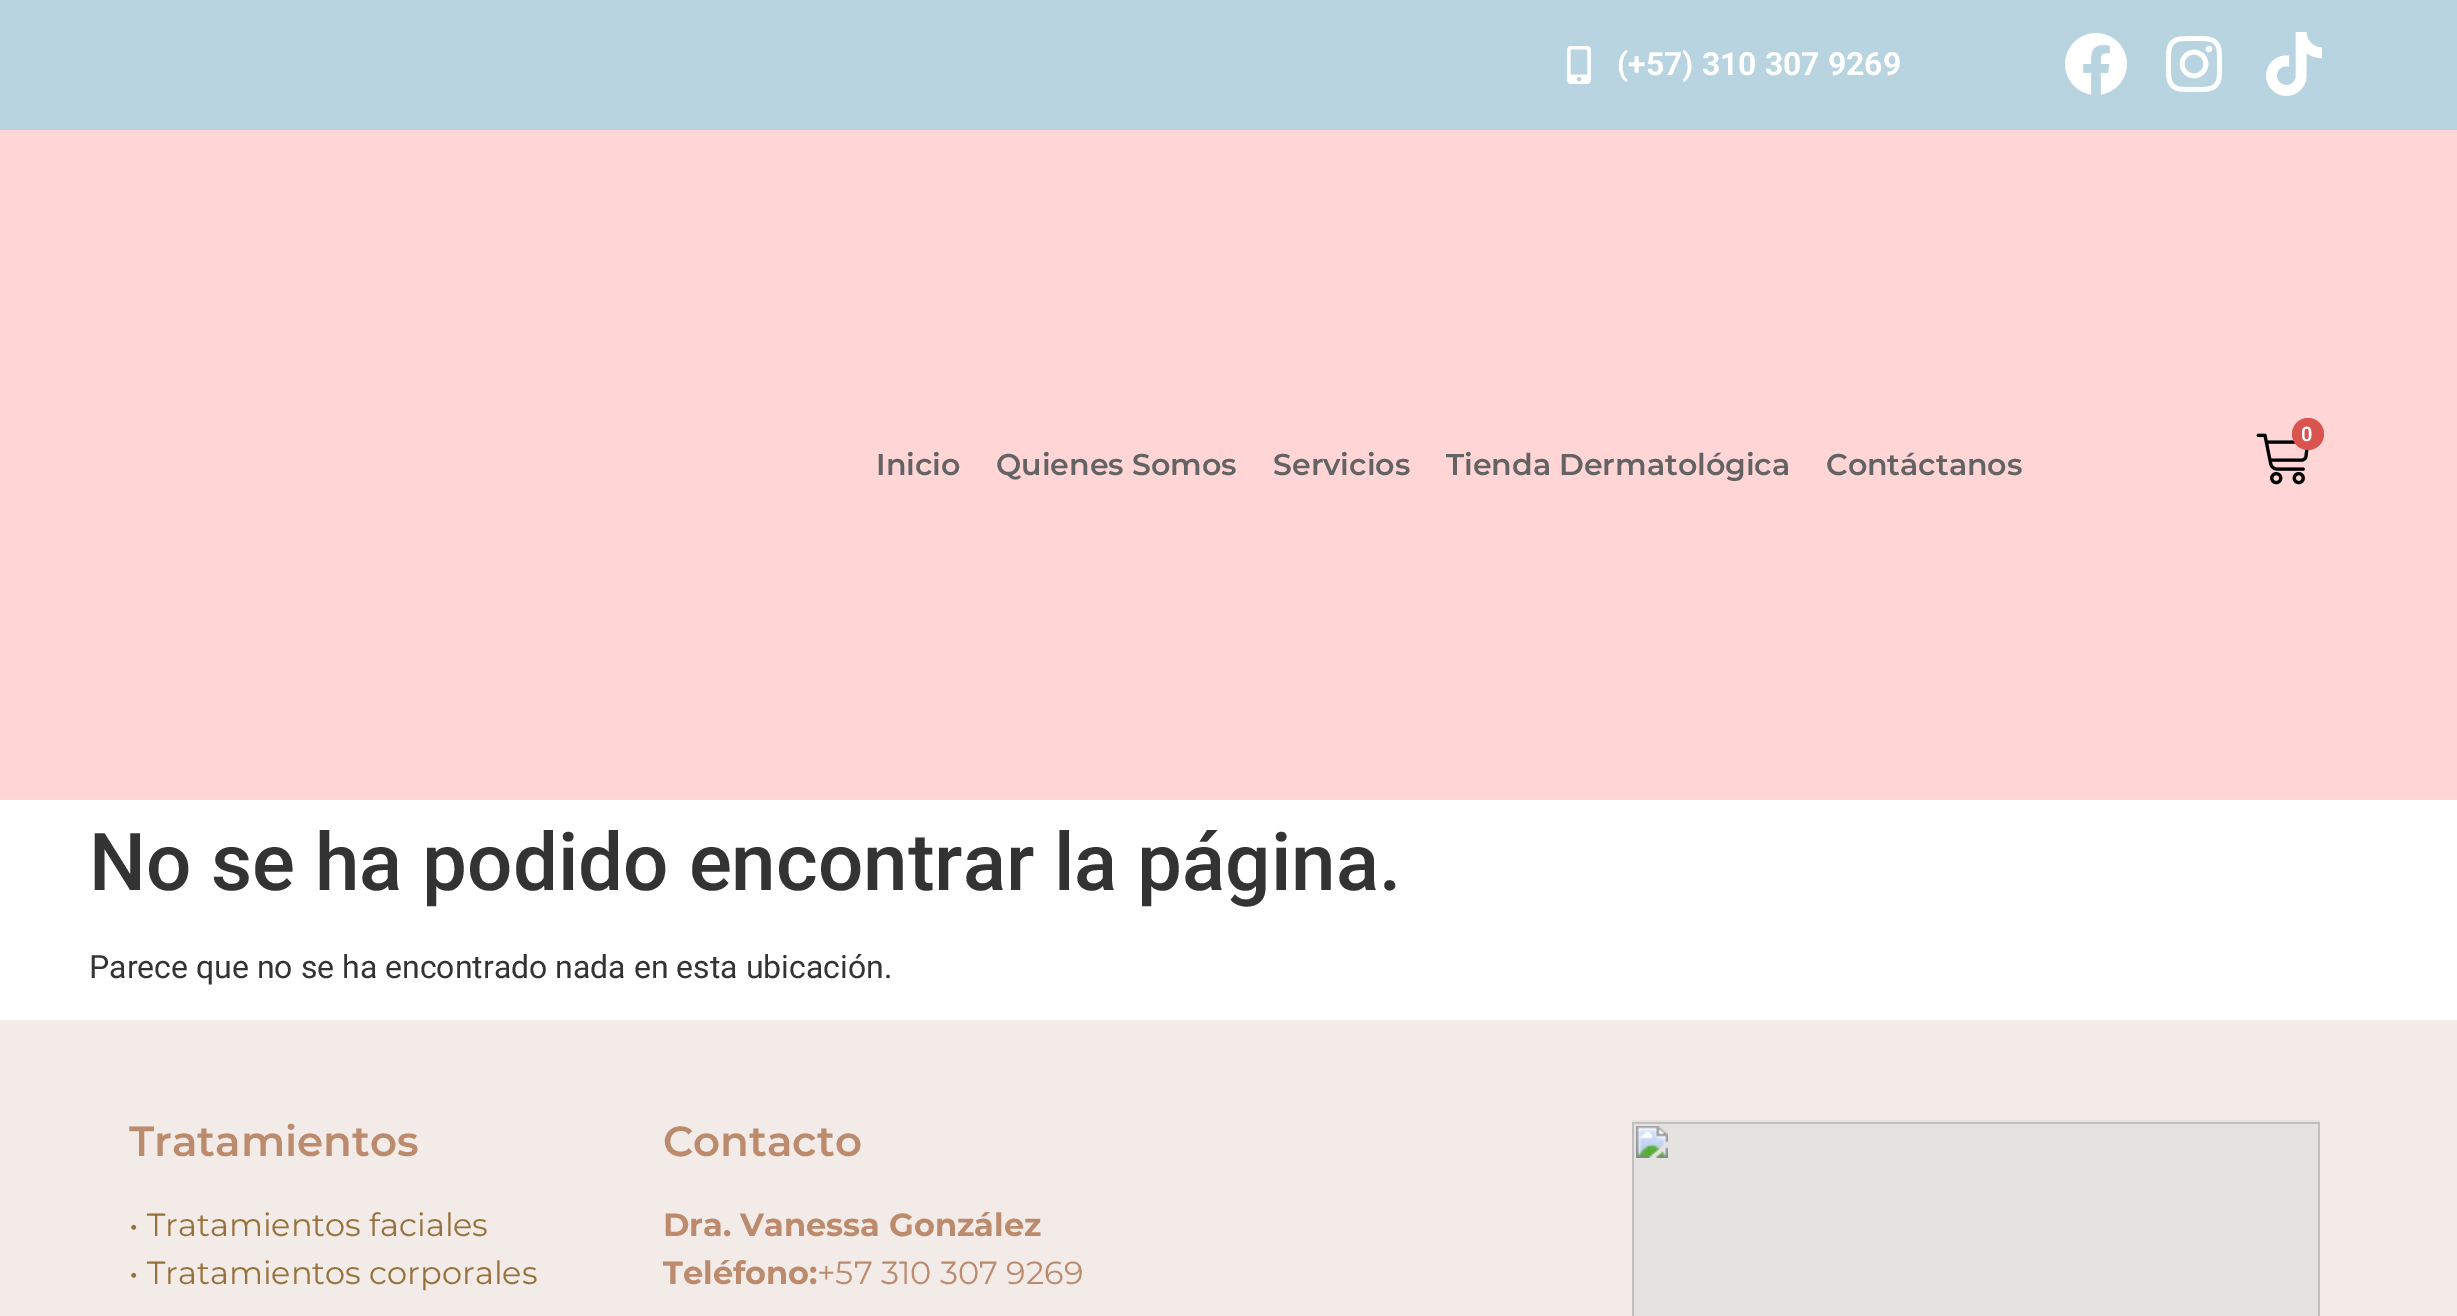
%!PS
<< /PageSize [2457 1316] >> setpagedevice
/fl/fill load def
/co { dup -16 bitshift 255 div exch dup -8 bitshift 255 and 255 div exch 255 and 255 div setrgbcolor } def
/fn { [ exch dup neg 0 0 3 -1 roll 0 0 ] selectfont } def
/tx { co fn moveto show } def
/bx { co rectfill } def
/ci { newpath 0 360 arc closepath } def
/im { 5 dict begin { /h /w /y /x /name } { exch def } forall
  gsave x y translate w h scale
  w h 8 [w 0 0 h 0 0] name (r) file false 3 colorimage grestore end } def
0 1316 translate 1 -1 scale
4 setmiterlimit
0 0 2457 1316 16#FFFFFF bx
0 0 2457 130 16#B7D4E0 bx
(media/1.raw) 1567 46 24 38 im
(media/2.raw) 2065 33 62 62 im
(media/3.raw) 2166 36 56 56 im
(media/4.raw) 2266 32 56 64 im
0 130 2457 670 16#FFD5D5 bx
(media/5.raw) 2256 433 53 52 im
16#D9534F co
2308 434 16 ci fl
0 1020 2457 296 16#F3EBE8 bx
(media/6.raw) 1632 1120 688 196 im
(\(+57\) 310 307 9269) 1617 75 /Roboto-Bold 32 16#FFFFFF tx
(0) 2301 441 /Roboto-SemiBold 20 16#FFFFFF tx
(Inicio) 876 475 /Montserrat-SemiBold 30 16#636363 tx
(Quienes Somos) 996 475 /Montserrat-SemiBold 30 16#636363 tx
(Servicios) 1273 475 /Montserrat-SemiBold 30 16#636363 tx
(Tienda Dermatológica) 1446 475 /Montserrat-SemiBold 30 16#636363 tx
(Contáctanos) 1826 475 /Montserrat-SemiBold 30 16#636363 tx
(No se ha podido encontrar la página.) 89 890 /Roboto-Medium 80 16#333333 tx
(Parece que no se ha encontrado nada en esta ubicación.) 89 978 /Roboto-Regular 32 16#333333 tx
(Tratamientos) 129 1156 /Montserrat-SemiBold 42 16#BC8A6C tx
(• Tratamientos faciales) 129 1236 /Montserrat-Regular 32 16#96713C tx
(• Tratamientos corporales) 129 1284 /Montserrat-Regular 32 16#96713C tx
(Contacto) 663 1156 /Montserrat-SemiBold 42 16#BC8A6C tx
(Dra. Vanessa González) 663 1236 /Montserrat-Bold 32 16#BC8A6C tx
(Teléfono:) 663 1284 /Montserrat-Bold 32 16#BC8A6C tx
(+57 310 307 9269) 817 1284 /Montserrat-Regular 32 16#BC8A6C tx
showpage
